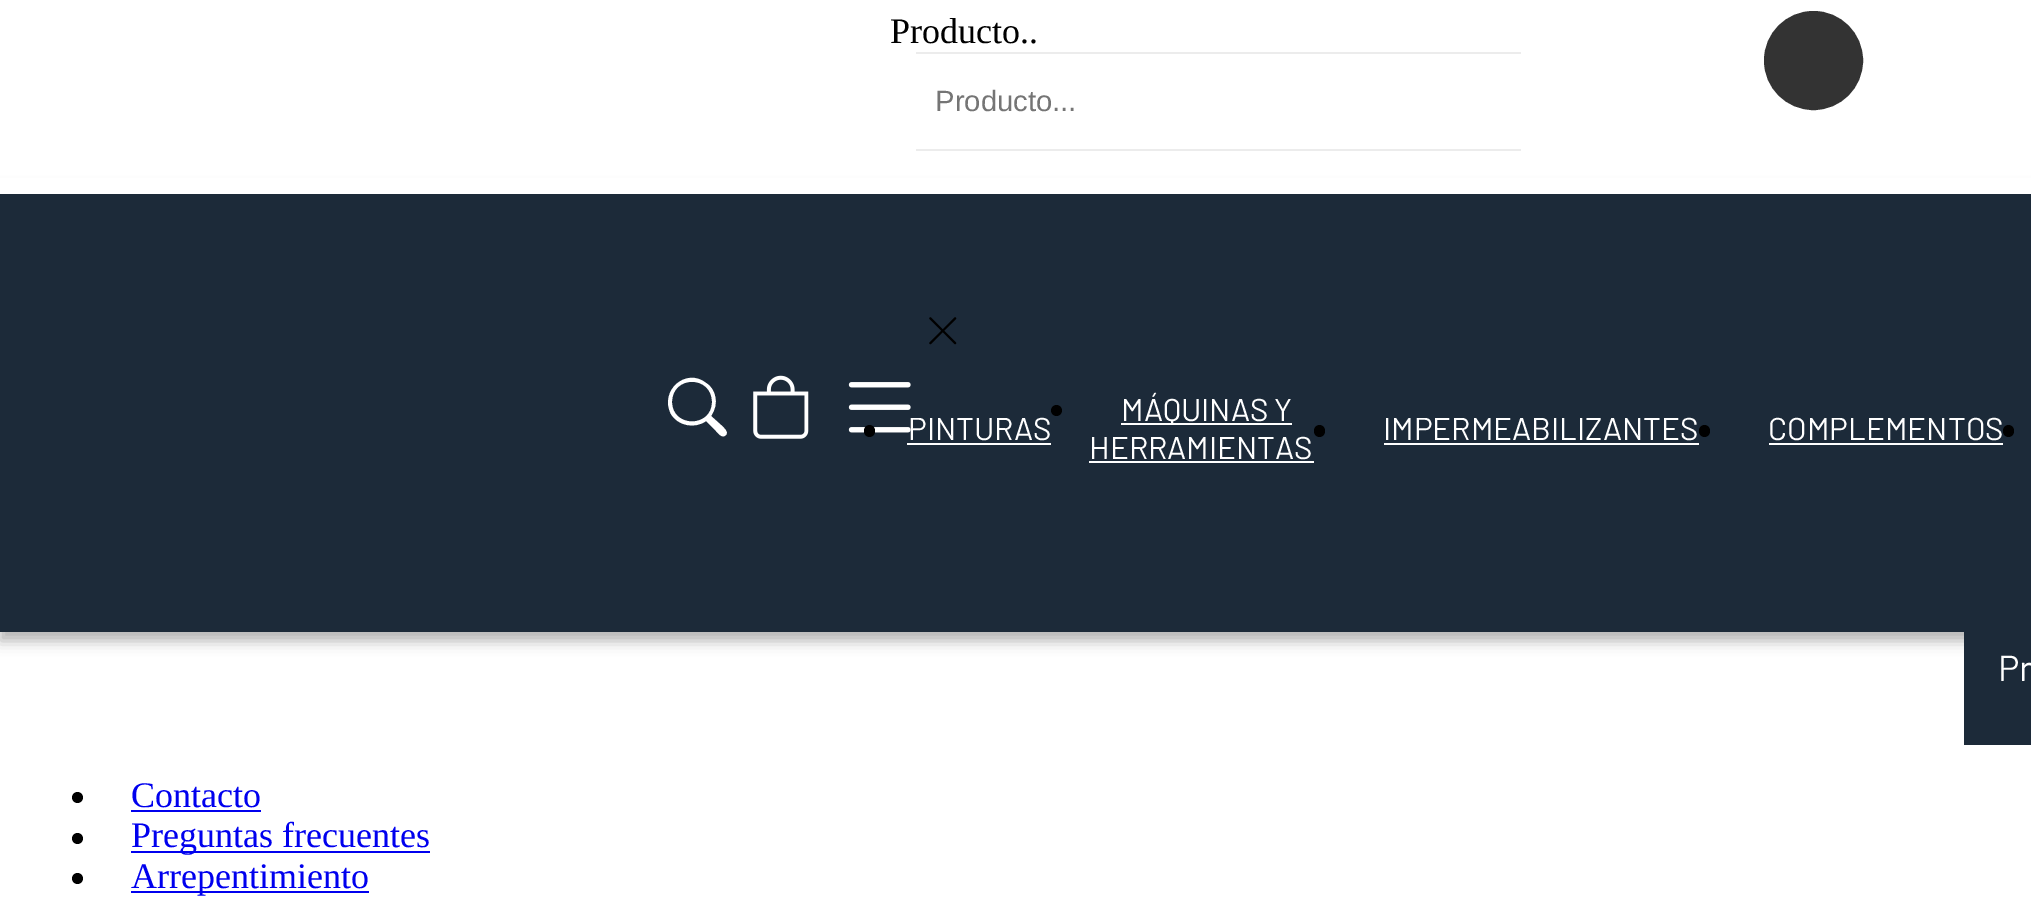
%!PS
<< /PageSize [2031 924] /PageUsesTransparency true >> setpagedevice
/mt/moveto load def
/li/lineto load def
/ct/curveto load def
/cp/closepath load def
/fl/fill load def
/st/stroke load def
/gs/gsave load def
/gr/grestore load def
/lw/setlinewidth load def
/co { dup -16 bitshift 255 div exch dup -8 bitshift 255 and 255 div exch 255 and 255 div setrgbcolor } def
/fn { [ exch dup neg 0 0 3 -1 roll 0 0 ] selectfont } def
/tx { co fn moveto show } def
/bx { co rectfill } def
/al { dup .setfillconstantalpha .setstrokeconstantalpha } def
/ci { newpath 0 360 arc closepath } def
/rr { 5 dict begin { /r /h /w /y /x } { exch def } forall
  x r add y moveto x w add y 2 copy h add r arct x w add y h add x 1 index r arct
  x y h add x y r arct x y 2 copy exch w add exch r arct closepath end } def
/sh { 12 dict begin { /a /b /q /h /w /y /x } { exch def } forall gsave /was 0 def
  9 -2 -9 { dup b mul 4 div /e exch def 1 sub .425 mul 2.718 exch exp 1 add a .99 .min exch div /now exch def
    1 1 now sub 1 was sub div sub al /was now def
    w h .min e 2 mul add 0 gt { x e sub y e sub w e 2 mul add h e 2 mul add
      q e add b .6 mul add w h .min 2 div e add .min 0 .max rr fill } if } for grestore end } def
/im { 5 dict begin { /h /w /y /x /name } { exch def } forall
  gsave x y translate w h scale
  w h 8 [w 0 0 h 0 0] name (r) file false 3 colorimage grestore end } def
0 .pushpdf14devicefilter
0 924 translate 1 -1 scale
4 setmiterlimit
0 0 2031 924 16#FFFFFF bx
16#000000 co
0 191 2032 450 0 7 .3 sh
0 178 2031 16 16#FFFFFF bx
916 52 605 2 16#ECECEC bx
916 149 605 2 16#ECECEC bx
16#333333 co
1813.5 60.5 45 ci gs fl gr
9 lw
st
0 194 2031 438 16#1C2A39 bx
16#FFFFFF co
711 416 mt 715 410 717 403 715 396 ct 714 391 711 386 706 383 ct 686 367 659 391 671 414 ct 678 426 695 429 706 421 ct 716 431 li 718 433 722 439 726 435 ct 729 432 723 427 721 425 ct cp 712 402 mt 712 428 672 428 672 402 ct 672 375 712 375 712 402 ct cp fl
(media/1.raw) 753 375 56 64 im
(media/2.raw) 848 382 63 51 im
(media/3.raw) 929 317 28 28 im
16#000000 co
864 425 11 12 5.5 rr fl
907 443 144 2 16#FFFFFF bx
16#000000 co
1056.5 410.5 5.5 ci fl
1121 423 171 2 16#FFFFFF bx
1089 461 225 2 16#FFFFFF bx
16#000000 co
1314 425 11 12 5.5 rr fl
1384 443 315 2 16#FFFFFF bx
16#000000 co
1699 425 11 12 5.5 rr fl
1769 443 234 2 16#FFFFFF bx
16#000000 co
2003 425 11 12 5.5 rr fl
1964 632 67 113 16#1C2A39 bx
16#000000 co
77.5 797.5 5.5 ci fl
131 810 130 2 16#0000EE bx
16#000000 co
77.5 838.5 5.5 ci fl
131 851 299 2 16#0000EE bx
16#000000 co
77.5 878.5 5.5 ci fl
131 891 238 2 16#0000EE bx
(Producto..) 890 43 /LiberationSerif-Regular 36 16#000000 tx
(Producto...) 935 111 /LiberationSans-Regular 29.25 16#757575 tx
(PINTURAS) 908 440 /Barlow-Regular 31.5 16#FFFFFF tx
(MÁQUINAS Y) 1121 421 /Barlow-Regular 31.5 16#FFFFFF tx
(HERRAMIENTAS) 1089 459 /Barlow-Regular 31.5 16#FFFFFF tx
(IMPERMEABILIZANTES) 1383 440 /Barlow-Regular 31.5 16#FFFFFF tx
(COMPLEMENTOS) 1768 440 /Barlow-Regular 31.5 16#FFFFFF tx
(Pr) 1998 681 /Barlow-Regular 36 16#FFFFFF tx
(Contacto) 131 807 /LiberationSerif-Regular 36 16#0000EE tx
(Preguntas frecuentes) 131 847 /LiberationSerif-Regular 36 16#0000EE tx
(Arrepentimiento) 131 888 /LiberationSerif-Regular 36 16#0000EE tx
.poppdf14devicefilter showpage
